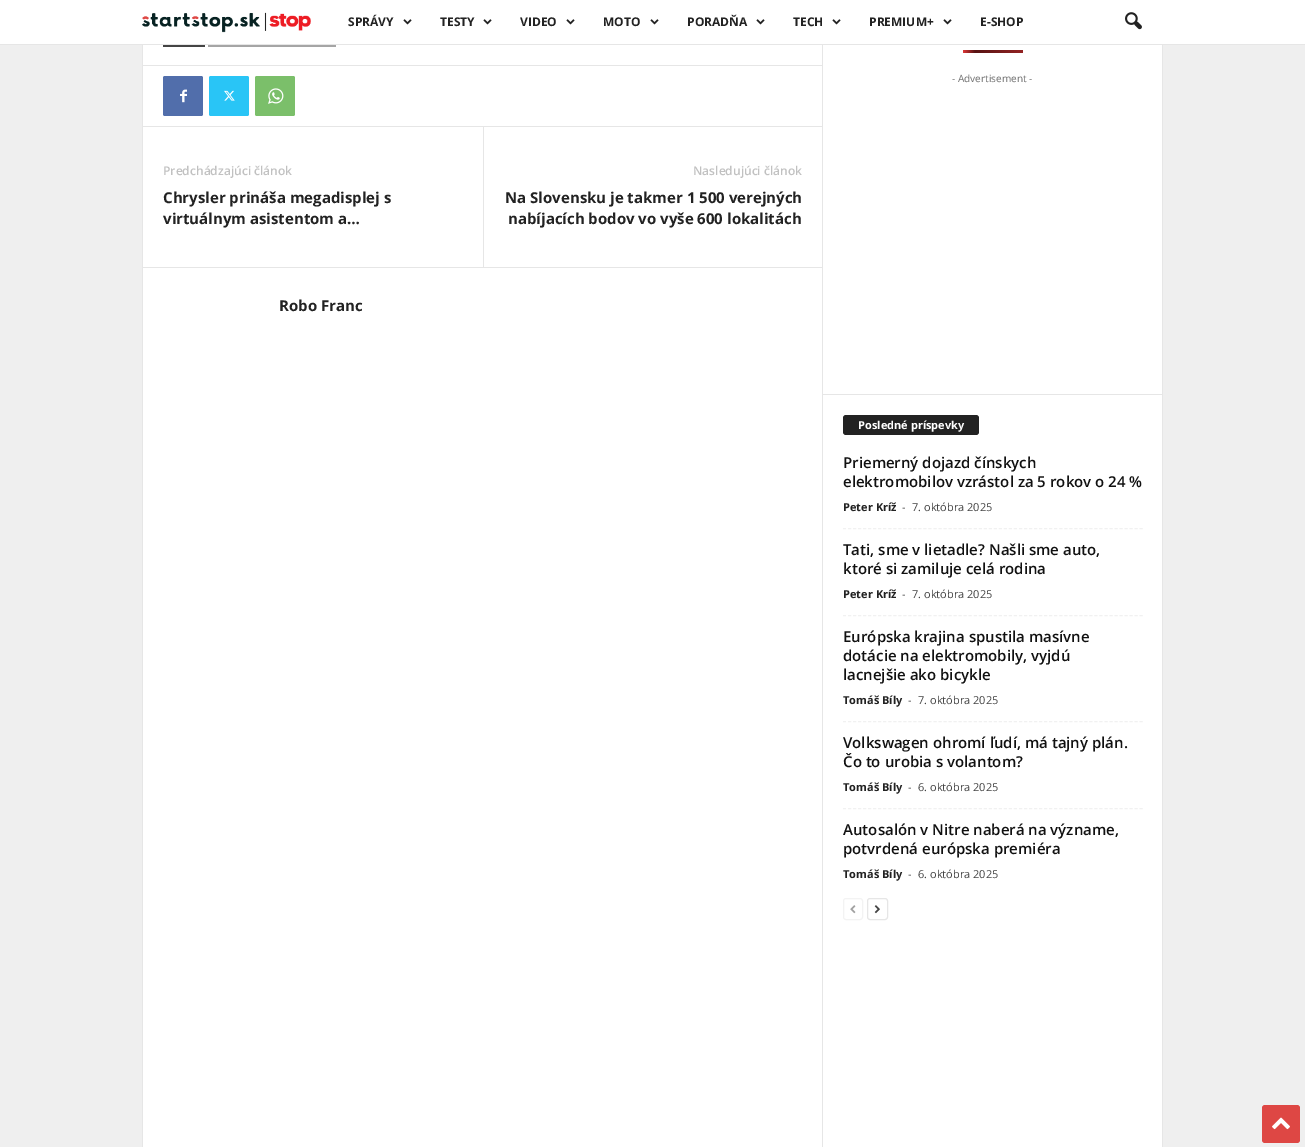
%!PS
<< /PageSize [1305 1147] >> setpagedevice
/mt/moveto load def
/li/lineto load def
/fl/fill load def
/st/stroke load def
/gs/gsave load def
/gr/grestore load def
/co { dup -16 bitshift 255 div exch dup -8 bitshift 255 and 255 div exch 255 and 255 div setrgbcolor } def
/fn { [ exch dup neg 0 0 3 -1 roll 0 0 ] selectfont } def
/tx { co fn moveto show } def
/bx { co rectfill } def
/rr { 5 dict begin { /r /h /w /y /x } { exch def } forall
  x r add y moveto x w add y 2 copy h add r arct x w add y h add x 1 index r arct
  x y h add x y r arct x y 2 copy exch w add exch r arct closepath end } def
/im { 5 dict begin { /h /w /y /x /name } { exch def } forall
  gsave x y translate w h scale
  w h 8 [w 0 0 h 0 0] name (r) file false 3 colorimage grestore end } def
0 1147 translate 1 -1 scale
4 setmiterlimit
0 0 1305 1147 16#EFEFEF bx
0 0 1305 44 16#FFFFFF bx
0 44 1305 1 16#E6E6E6 bx
(media/1.raw) 142 12 169 21 im
(media/2.raw) 403 19 9 6 im
(media/2.raw) 483 19 9 6 im
(media/2.raw) 566 19 9 6 im
(media/2.raw) 650 19 9 6 im
(media/2.raw) 756 19 9 6 im
(media/2.raw) 832 19 9 6 im
(media/2.raw) 943 19 9 6 im
(media/3.raw) 1125 12 17 18 im
143 45 1019 1102 16#FFFFFF bx
142 45 1 1102 16#E6E6E6 bx
163 45 42 2 16#444444 bx
208 45 128 2 16#A5A5A5 bx
143 65 679 1 16#E6E6E6 bx
16#516EAB co
163 76 40 40 2 rr fl
(media/4.raw) 180 89 7 14 im
16#29C5F6 co
209 76 40 40 2 rr fl
(media/5.raw) 224 90 11 11 im
16#7BBF6A co
255 76 40 40 2 rr fl
(media/6.raw) 268 88 16 16 im
143 126 679 1 16#E6E6E6 bx
483 127 1 140 16#E6E6E6 bx
143 267 679 1 16#E6E6E6 bx
822 45 1 1102 16#E6E6E6 bx
gs 963 50 60 3 1.5 rr clip newpath
<< /ShadingType 2 /ColorSpace /DeviceRGB /Coords [963 52 1083 51] /Extend [true true] /Function << /FunctionType 3 /Domain [0 1] /Functions [<< /FunctionType 2 /Domain [0 1] /C0 [.867 .216 .216] /C1 [.341 .075 .075] /N 1 >> << /FunctionType 2 /Domain [0 1] /C0 [.341 .075 .075] /C1 [.867 .216 .216] /N 1 >>] /Bounds [.1] /Encode [0 1 0 1] >> >> shfill gr
823 394 339 1 16#E6E6E6 bx
16#222222 co
843 415 136 20 3 rr fl
16#F1F1F1 co
[3 2.03] 0 setdash
843 528.5 mt 1143 528.5 li st
843 615.5 mt 1143 615.5 li st
843 721.5 mt 1143 721.5 li st
843 808.5 mt 1143 808.5 li st
16#F3F3F3 co
[] 0 setdash
843.5 898.5 19 21 2.5 rr st
(media/7.raw) 850 905 6 9 im
16#E6E6E6 co
867.5 898.5 20 21 2.5 rr st
(media/8.raw) 874 905 6 9 im
1162 45 1 1102 16#E6E6E6 bx
16#DE4744 co
1262 1105 38 38 3 rr fl
(media/9.raw) 1272 1117 18 13 im
(SPRÁVY) 348 26 /OpenSans-Bold 12 16#222222 tx
(TESTY) 440 26 /OpenSans-Bold 12 16#222222 tx
(VIDEO) 520 26 /OpenSans-Bold 12 16#222222 tx
(MOTO) 603 26 /OpenSans-Bold 12 16#222222 tx
(PORADŇA) 687 26 /OpenSans-Bold 12 16#222222 tx
(TECH) 793 26 /OpenSans-Bold 12 16#222222 tx
(PREMIUM+) 869 26 /OpenSans-Bold 12 16#222222 tx
(E-SHOP) 980 26 /OpenSans-Bold 12 16#222222 tx
(Predchádzajúci článok) 163 175 /OpenSans-SemiBold 12 16#C1C1C1 tx
(Chrysler prináša megadisplej s) 163 203 /OpenSans-Bold 15 16#222222 tx
(virtuálnym asistentom a…) 163 224 /OpenSans-Bold 15 16#222222 tx
(Nasledujúci článok) 693 175 /OpenSans-SemiBold 12 16#C1C1C1 tx
(Na Slovensku je takmer 1 500 verejných) 505 203 /OpenSans-Bold 15 16#222222 tx
(nabíjacích bodov vo vyše 600 lokalitách) 508 224 /OpenSans-Bold 15 16#222222 tx
(Robo Franc) 279 311 /OpenSans-Bold 15 16#222222 tx
(- Advertisement -) 952 82 /NotoSans-Regular 10 16#767676 tx
(Posledné príspevky) 858 429 /OpenSans-Bold 11 16#FFFFFF tx
(Priemerný dojazd čínskych) 843 468 /OpenSans-SemiBold 15 16#111111 tx
(elektromobilov vzrástol za 5 rokov o 24 %) 843 487 /OpenSans-SemiBold 15 16#111111 tx
(Peter Kríž) 843 511 /OpenSans-Bold 11 16#222222 tx
(-) 902 511 /OpenSans-Regular 11 16#444444 tx
(7. októbra 2025) 912 511 /OpenSans-Regular 11 16#444444 tx
(Tati, sme v lietadle? Našli sme auto,) 843 555 /OpenSans-SemiBold 15 16#111111 tx
(ktoré si zamiluje celá rodina) 843 574 /OpenSans-SemiBold 15 16#111111 tx
(Peter Kríž) 843 598 /OpenSans-Bold 11 16#222222 tx
(-) 902 598 /OpenSans-Regular 11 16#444444 tx
(7. októbra 2025) 912 598 /OpenSans-Regular 11 16#444444 tx
(Európska krajina spustila masívne) 843 642 /OpenSans-SemiBold 15 16#111111 tx
(dotácie na elektromobily, vyjdú) 843 661 /OpenSans-SemiBold 15 16#111111 tx
(lacnejšie ako bicykle) 843 680 /OpenSans-SemiBold 15 16#111111 tx
(Tomáš Bíly) 843 704 /OpenSans-Bold 11 16#222222 tx
(-) 908 704 /OpenSans-Regular 11 16#444444 tx
(7. októbra 2025) 918 704 /OpenSans-Regular 11 16#444444 tx
(Volkswagen ohromí ľudí, má tajný plán.) 843 748 /OpenSans-SemiBold 15 16#111111 tx
(Čo to urobia s volantom?) 843 767 /OpenSans-SemiBold 15 16#111111 tx
(Tomáš Bíly) 843 791 /OpenSans-Bold 11 16#222222 tx
(-) 908 791 /OpenSans-Regular 11 16#444444 tx
(6. októbra 2025) 918 791 /OpenSans-Regular 11 16#444444 tx
(Autosalón v Nitre naberá na význame,) 843 835 /OpenSans-SemiBold 15 16#111111 tx
(potvrdená európska premiéra) 843 854 /OpenSans-SemiBold 15 16#111111 tx
(Tomáš Bíly) 843 878 /OpenSans-Bold 11 16#222222 tx
(-) 908 878 /OpenSans-Regular 11 16#444444 tx
(6. októbra 2025) 918 878 /OpenSans-Regular 11 16#444444 tx
showpage
